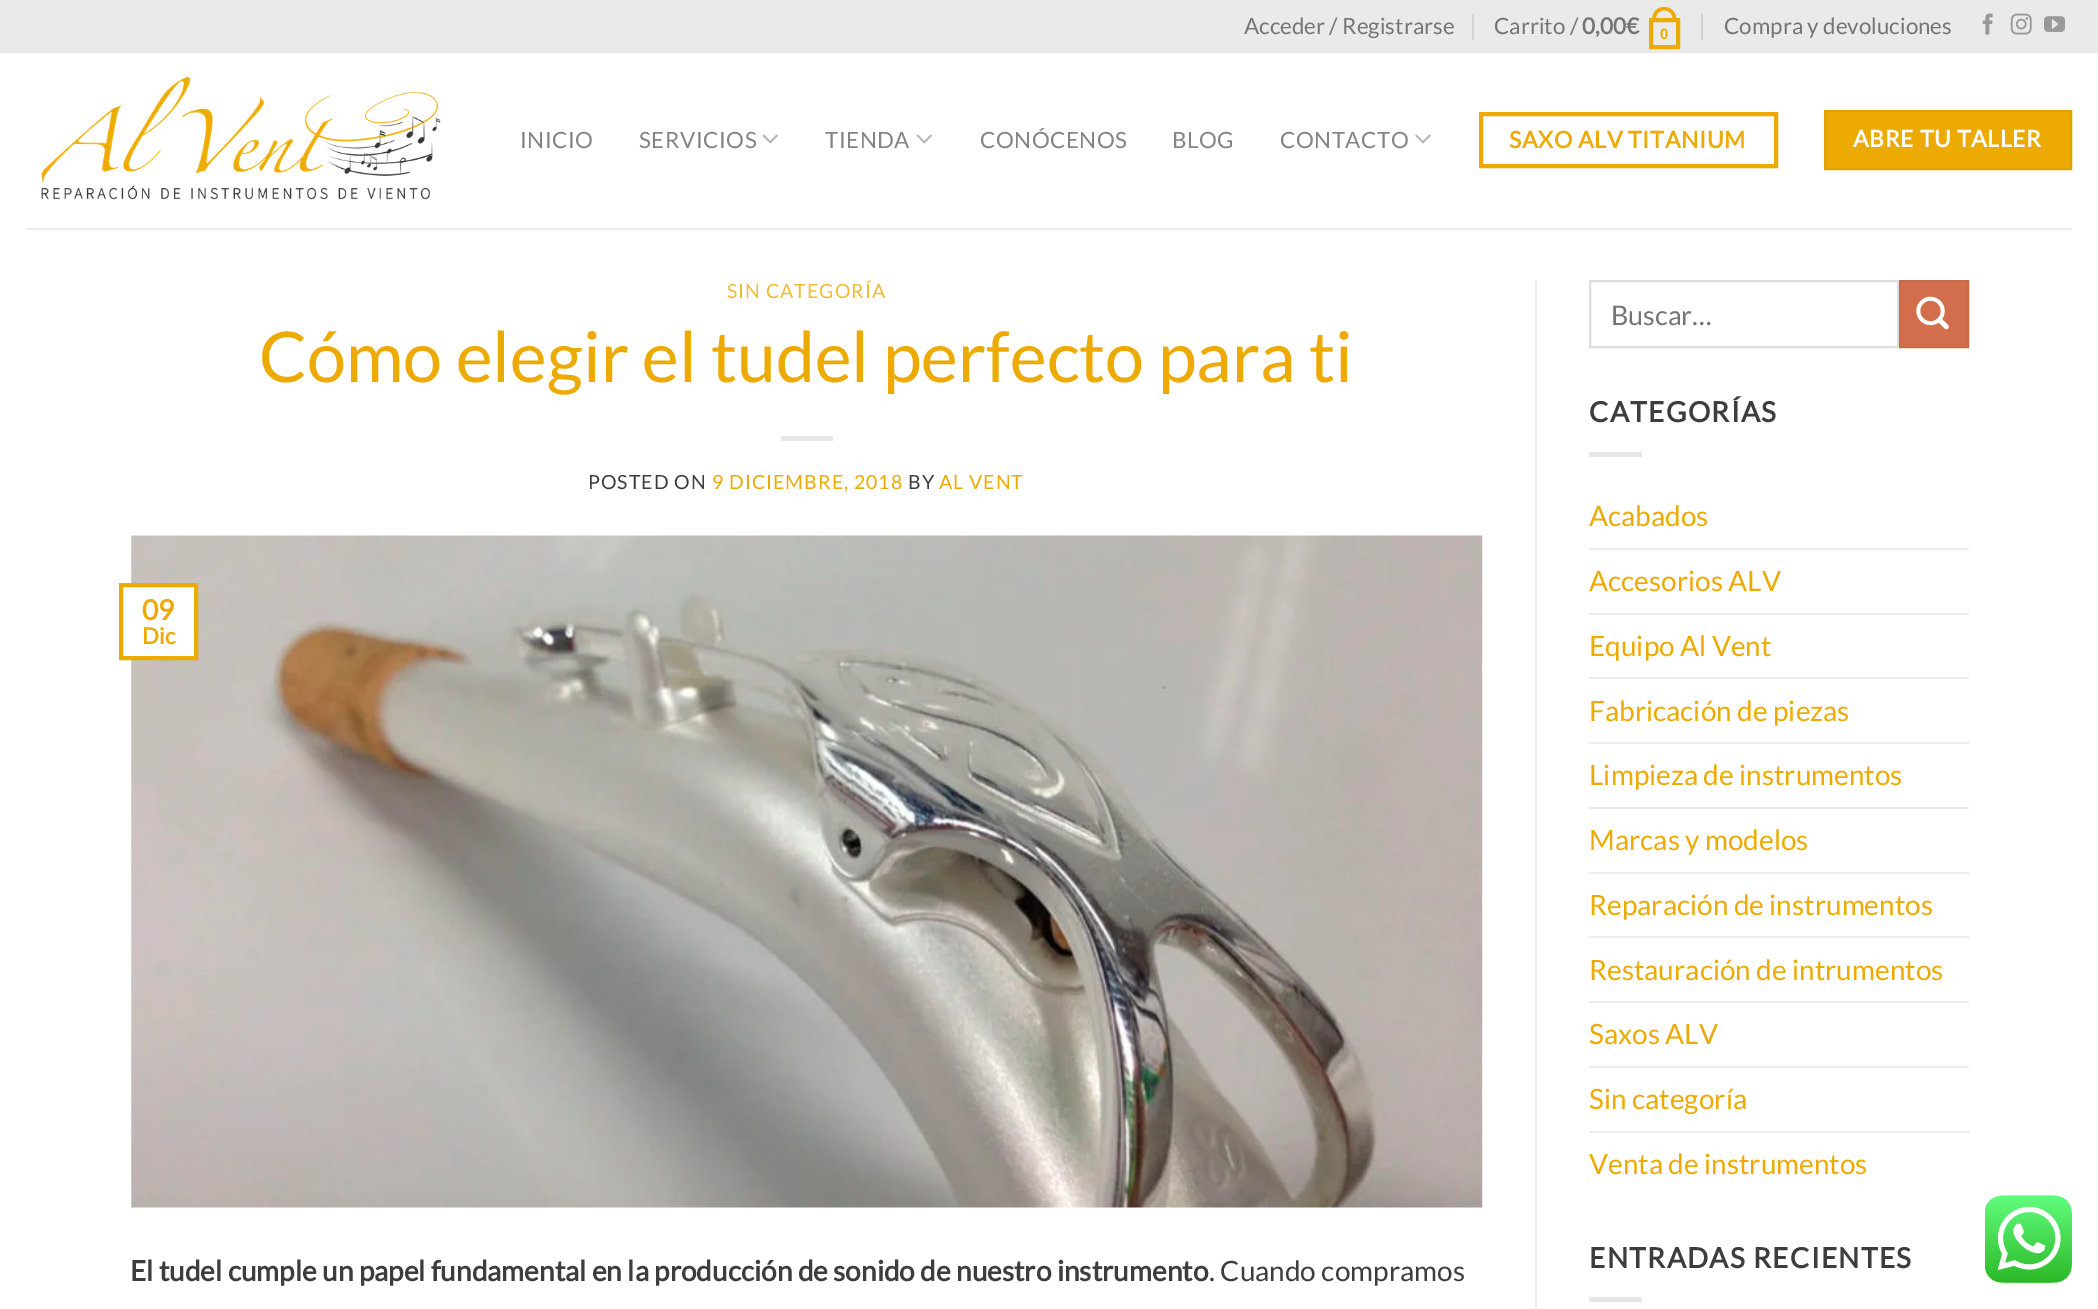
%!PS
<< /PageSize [2098 1309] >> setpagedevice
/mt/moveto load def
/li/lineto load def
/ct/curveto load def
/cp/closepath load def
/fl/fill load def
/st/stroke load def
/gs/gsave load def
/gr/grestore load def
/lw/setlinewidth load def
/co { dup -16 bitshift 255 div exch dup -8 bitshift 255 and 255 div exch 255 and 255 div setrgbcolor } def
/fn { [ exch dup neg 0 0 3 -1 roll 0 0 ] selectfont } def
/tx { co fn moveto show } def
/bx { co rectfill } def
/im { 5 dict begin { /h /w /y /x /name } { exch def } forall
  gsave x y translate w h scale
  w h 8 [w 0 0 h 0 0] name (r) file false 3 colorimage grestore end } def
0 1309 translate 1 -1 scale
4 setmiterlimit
0 0 2098 1309 16#FFFFFF bx
0 0 2098 53 16#EAEAEA bx
1472 14 2 26 16#D3D3D3 bx
16#EDAA03 co
4 lw
1651 20 27 27 rectstroke
1664 7 mt 1672.5 7 1676.5 13.5 1676.5 21 ct 1652 21 li 1652 13.5 1656 7 1664 7 ct cp 1664 10.5 mt 1670.5 10.5 1673 15.5 1673 21 ct 1655.5 21 li 1655.5 15.5 1658 10.5 1664 10.5 ct cp eofill
1701 14 2 26 16#D3D3D3 bx
(media/1.raw) 1982 13 11 22 im
(media/2.raw) 2010 13 22 22 im
(media/3.raw) 2044 16 21 16 im
(media/4.raw) 41 76 400 124 im
(media/5.raw) 762 134 16 10 im
(media/5.raw) 916 134 16 10 im
(media/6.raw) 1415 134 16 10 im
16#EDAA03 co
1481 114 295 52 rectstroke
1825 111 mt 2071 111 li 2071 169 li 1825 169 li cp gs fl gr
16#E1A203 co
2 lw
st
26 228 2046 2 16#ECECEC bx
781 436 52 5 16#E6E6E6 bx
(media/7.raw) 131 535 1352 673 im
131 587 63 69 16#FFFFFF bx
16#EDAA03 co
4 lw
121 585 75 73 rectstroke
1535 280 2 1029 16#ECECEC bx
16#DDDDDD co
2 lw
1590 281 308 66 rectstroke
16#D26E4B co
1900 281 mt 1968 281 li 1968 347 li 1900 347 li cp gs fl gr
16#C86947 co
st
(media/8.raw) 1916 296 33 34 im
1589 452 53 5 16#E6E6E6 bx
1589 548 380 2 16#ECECEC bx
1589 613 380 2 16#ECECEC bx
1589 677 380 2 16#ECECEC bx
1589 742 380 2 16#ECECEC bx
1589 807 380 2 16#ECECEC bx
1589 872 380 2 16#ECECEC bx
1589 936 380 2 16#ECECEC bx
1589 1001 380 2 16#ECECEC bx
1589 1066 380 2 16#ECECEC bx
1589 1131 380 2 16#ECECEC bx
1589 1297 53 5 16#E6E6E6 bx
(media/9.raw) 1985 1195 87 88 im
(Acceder / Registrarse) 1244 34 /Lato-Regular 22.4 16#757575 tx
(Carrito /) 1494 34 /Lato-Regular 22.4 16#757575 tx
(0,00€) 1582 34 /Lato-Bold 22.4 16#757575 tx
(0) 1660 39 /LiberationSans-Bold 15 16#EDAA03 tx
(Compra y devoluciones) 1724 34 /Lato-Regular 22.4 16#757575 tx
16#848484 co
520 148 mt .5 0 (INICIO) ashow
639 148 mt .5 0 (SERVICIOS) ashow
825 148 mt .5 0 (TIENDA) ashow
980 148 mt .5 0 (CONÓCENOS) ashow
1172 148 mt .5 0 (BLOG) ashow
1280 148 mt .5 0 (CONTACTO) ashow
/Lato-Bold 23 fn
16#EDAA03 co
1509 148 mt .7 0 (SAXO ALV TITANIUM) ashow
16#FFFFFF co
1853 147 mt .7 0 (ABRE TU TALLER) ashow
/Lato-Regular 19.5 fn
16#F1BB35 co
727 298 mt 1 0 (SIN CATEGORÍA) ashow
(Cómo elegir el tudel perfecto para ti) 259 382 /Lato-Regular 70 16#EDAA03 tx
/Lato-Regular 19.5 fn
16#3D3D3D co
588 489 mt 1 0 (POSTED ON) ashow
16#EDAA03 co
712 489 mt 1 0 (9 DICIEMBRE, 2018) ashow
16#3D3D3D co
908 489 mt 1 0 (BY) ashow
16#EDAA03 co
939 489 mt 1 0 (AL VENT) ashow
(09) 142 620 /Lato-Bold 28 16#EDAA03 tx
(Dic) 142 644 /Lato-Bold 22.4 16#EDAA03 tx
(El tudel cumple un papel fundamental en la producción de sonido de nuestro instrumento) 130 1281 /Lato-Bold 28 16#3D3D3D tx
(. Cuando compramos) 1209 1281 /Lato-Regular 28 16#3D3D3D tx
(Buscar…) 1611 325 /Lato-Regular 27 16#757575 tx
/Lato-Bold 28 fn
16#3D3D3D co
1589 422 mt 1.4 0 (CATEGORÍAS) ashow
(Acabados) 1589 526 /Lato-Regular 28 16#EDAA03 tx
(Accesorios ALV) 1589 591 /Lato-Regular 28 16#EDAA03 tx
(Equipo Al Vent) 1589 656 /Lato-Regular 28 16#EDAA03 tx
(Fabricación de piezas) 1589 721 /Lato-Regular 28 16#EDAA03 tx
(Limpieza de instrumentos) 1589 785 /Lato-Regular 28 16#EDAA03 tx
(Marcas y modelos) 1589 850 /Lato-Regular 28 16#EDAA03 tx
(Reparación de instrumentos) 1589 915 /Lato-Regular 28 16#EDAA03 tx
(Restauración de intrumentos) 1589 980 /Lato-Regular 28 16#EDAA03 tx
(Saxos ALV) 1589 1044 /Lato-Regular 28 16#EDAA03 tx
(Sin categoría) 1589 1109 /Lato-Regular 28 16#EDAA03 tx
(Venta de instrumentos) 1589 1174 /Lato-Regular 28 16#EDAA03 tx
/Lato-Bold 28 fn
16#3D3D3D co
1589 1268 mt 1.4 0 (ENTRADAS RECIENTES) ashow
showpage
